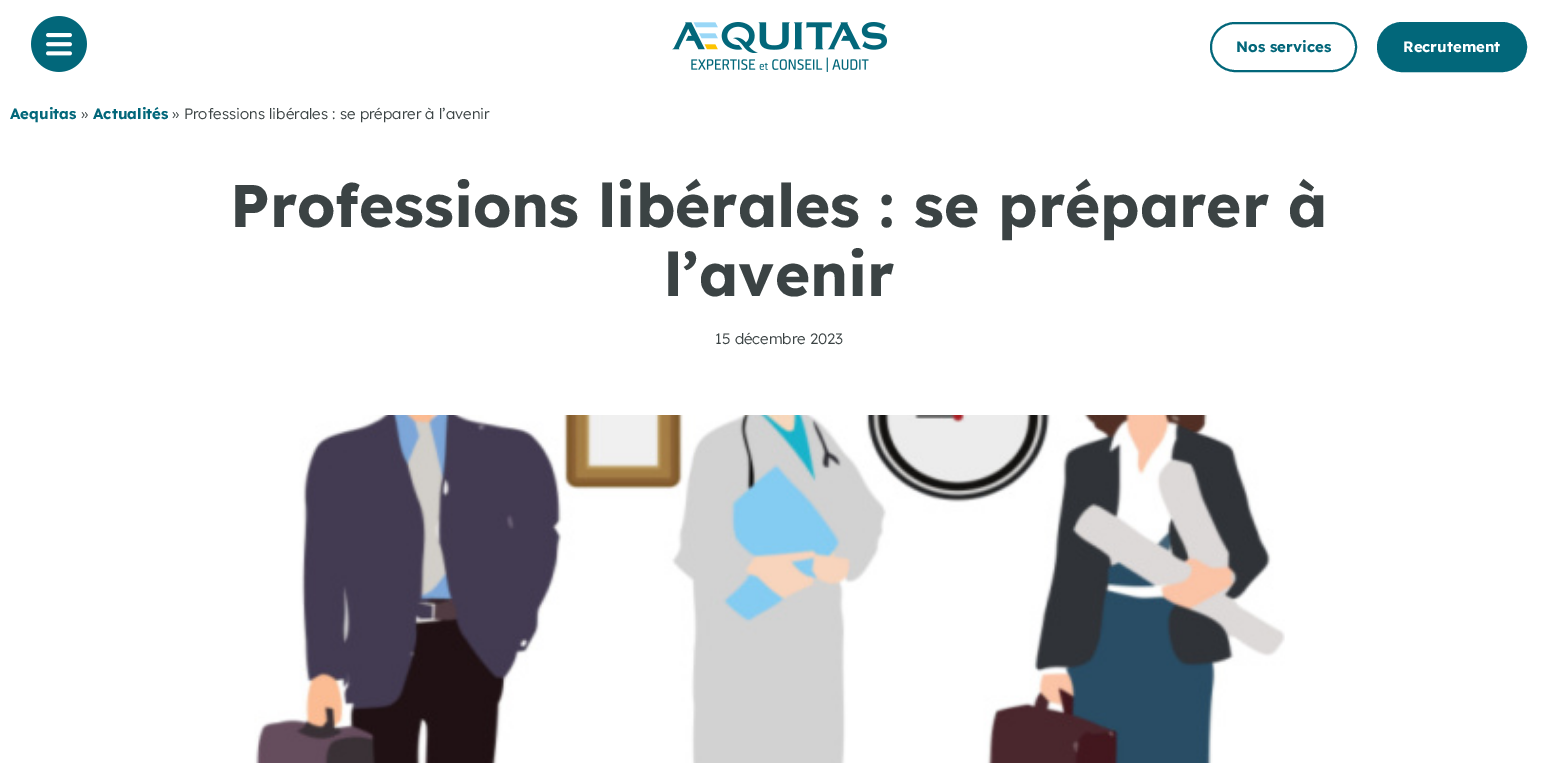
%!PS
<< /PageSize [1558 763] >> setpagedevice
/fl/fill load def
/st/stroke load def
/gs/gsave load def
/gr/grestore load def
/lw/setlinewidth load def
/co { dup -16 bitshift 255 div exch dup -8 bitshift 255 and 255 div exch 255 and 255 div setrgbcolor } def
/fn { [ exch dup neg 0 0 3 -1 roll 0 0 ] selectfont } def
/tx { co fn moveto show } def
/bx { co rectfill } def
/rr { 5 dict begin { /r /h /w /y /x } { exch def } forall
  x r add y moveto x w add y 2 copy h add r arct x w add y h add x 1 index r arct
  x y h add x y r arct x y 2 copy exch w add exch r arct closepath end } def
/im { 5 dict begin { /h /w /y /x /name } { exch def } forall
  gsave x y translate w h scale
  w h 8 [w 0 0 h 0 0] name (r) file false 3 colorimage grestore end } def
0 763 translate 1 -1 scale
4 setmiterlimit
0 0 1558 763 16#FFFFFF bx
(media/1.raw) 31 16 56 56 im
(media/2.raw) 672 22 215 50 im
16#02677A co
2 lw
1211 23 145 48 24 rr st
1378 23 148 48 24 rr gs fl gr
st
(media/3.raw) 254 415 1031 348 im
(Nos services) 1236 52 /Lexend-Bold 15 16#02677A tx
(Recrutement) 1403 52 /Lexend-Bold 15 16#FFFFFF tx
(Aequitas) 10 119 /Lexend-Bold 15 16#02677A tx
(») 81 119 /Lexend-Light 15 16#3B4344 tx
(Actualités) 93 119 /Lexend-Bold 15 16#02677A tx
(» Professions libérales : se préparer à l’avenir) 172 119 /Lexend-Light 15 16#3B4344 tx
(Professions libérales : se préparer à) 230 227 /Lexend-Bold 60 16#3B4344 tx
(l’avenir) 664 296 /Lexend-Bold 60 16#3B4344 tx
(15 décembre 2023) 715 344 /Lexend-Light 15 16#3B4344 tx
showpage
